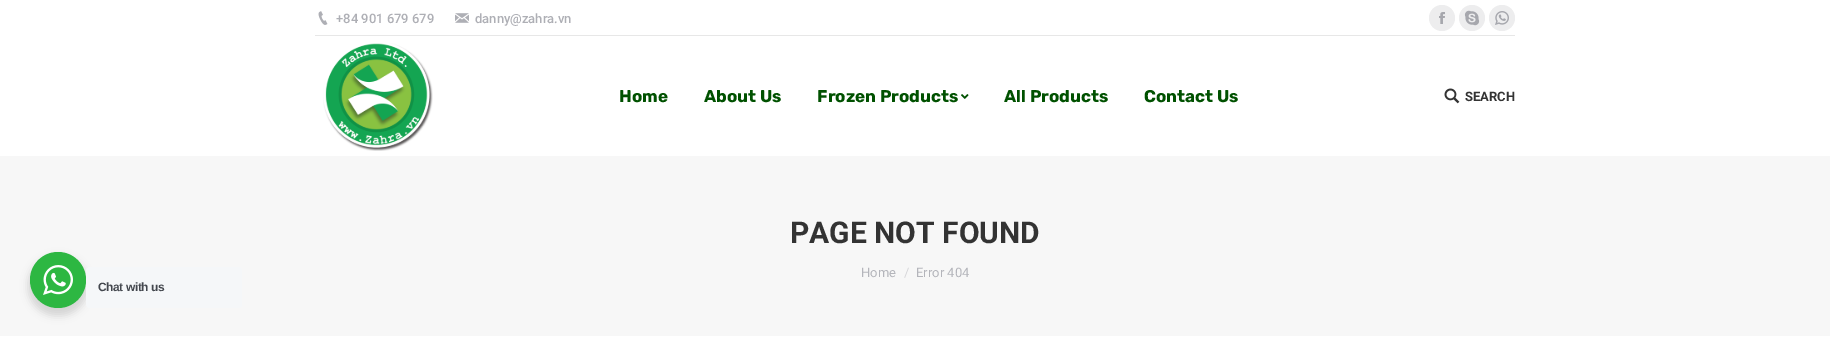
%!PS
<< /PageSize [1830 338] /PageUsesTransparency true >> setpagedevice
/mt/moveto load def
/fl/fill load def
/co { dup -16 bitshift 255 div exch dup -8 bitshift 255 and 255 div exch 255 and 255 div setrgbcolor } def
/fn { [ exch dup neg 0 0 3 -1 roll 0 0 ] selectfont } def
/tx { co fn moveto show } def
/bx { co rectfill } def
/al { dup .setfillconstantalpha .setstrokeconstantalpha } def
/ci { newpath 0 360 arc closepath } def
/rr { 5 dict begin { /r /h /w /y /x } { exch def } forall
  x r add y moveto x w add y 2 copy h add r arct x w add y h add x 1 index r arct
  x y h add x y r arct x y 2 copy exch w add exch r arct closepath end } def
/sh { 12 dict begin { /a /b /q /h /w /y /x } { exch def } forall gsave /was 0 def
  9 -2 -9 { dup b mul 4 div /e exch def 1 sub .425 mul 2.718 exch exp 1 add a .99 .min exch div /now exch def
    1 1 now sub 1 was sub div sub al /was now def
    w h .min e 2 mul add 0 gt { x e sub y e sub w e 2 mul add h e 2 mul add
      q e add b .6 mul add w h .min 2 div e add .min 0 .max rr fill } if } for grestore end } def
/im { 5 dict begin { /h /w /y /x /name } { exch def } forall
  gsave x y translate w h scale
  w h 8 [w 0 0 h 0 0] name (r) file false 3 colorimage grestore end } def
0 .pushpdf14devicefilter
0 338 translate 1 -1 scale
4 setmiterlimit
0 0 1830 338 16#FFFFFF bx
(media/1.raw) 318 11 10 14 im
(media/2.raw) 455 13 14 10 im
16#EDEDEE co
1442 18 13 ci fl
(media/3.raw) 1439 12 6 12 im
1472 18 13 ci fl
(media/4.raw) 1464 10 16 16 im
1502 18 13 ci fl
(media/5.raw) 1495 11 14 14 im
315 35 1200 1 16#E7E7E7 bx
(media/6.raw) 323 43 110 108 im
(media/7.raw) 961 94 8 5 im
(media/8.raw) 1444 88 16 16 im
0 156 1830 180 16#F7F7F7 bx
16#000000 co
28 256 60 60 30 4 .14 sh
16#2DB742 co
58 280 28 ci fl
(media/9.raw) 43 265 30 30 im
16#F5F7F9 co
86 267 156 41 4 rr fl
(+84 901 679 679) 336 23 /Roboto-Medium 13 16#AEAFB5 tx
(danny@zahra.vn) 475 23 /Roboto-Medium 13 16#AEAFB5 tx
(Home) 619 102 /Rubik-Bold 17 16#005100 tx
(About Us) 704 102 /Rubik-Bold 17 16#005100 tx
(Frozen Products) 817 102 /Rubik-Bold 17 16#005100 tx
(All Products) 1004 102 /Rubik-Bold 17 16#005100 tx
(Contact Us) 1144 102 /Rubik-Bold 17 16#005100 tx
(SEARCH) 1465 101 /Roboto-Bold 13 16#333333 tx
(PAGE NOT FOUND) 790 243 /Roboto-Bold 30 16#333333 tx
(Home) 861 277 /Roboto-Regular 13 16#B4B5BB tx
(/) 904 277 /Roboto-Regular 13 16#D6D6D9 tx
(Error 404) 916 277 /Roboto-Regular 13 16#B4B5BB tx
/LiberationSans-Bold 12 fn
16#43474E co
98 291 mt -.4 0 (Chat with us) ashow
.poppdf14devicefilter showpage
